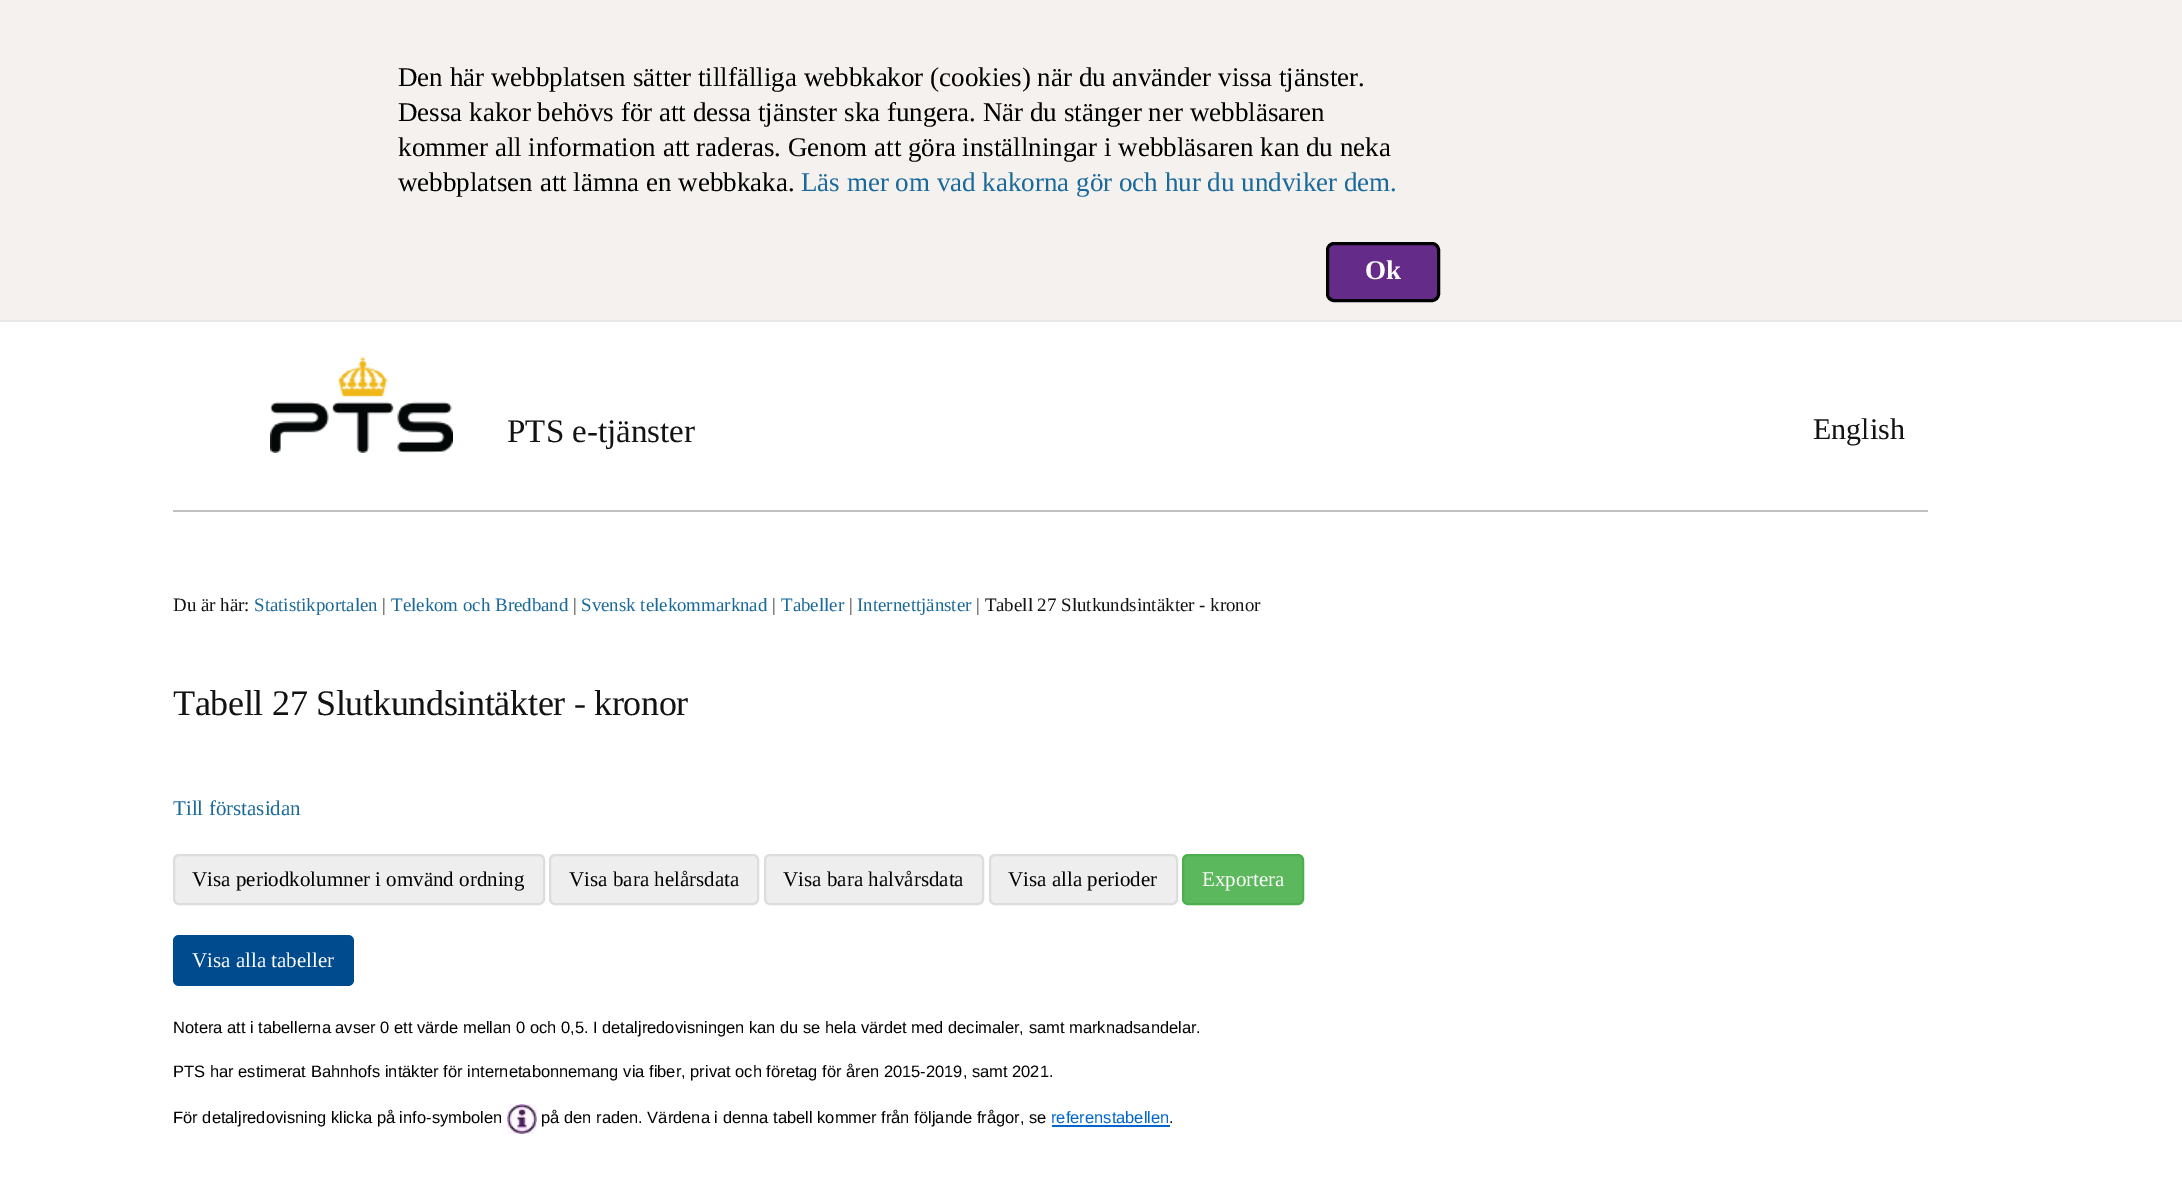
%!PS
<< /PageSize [2182 1204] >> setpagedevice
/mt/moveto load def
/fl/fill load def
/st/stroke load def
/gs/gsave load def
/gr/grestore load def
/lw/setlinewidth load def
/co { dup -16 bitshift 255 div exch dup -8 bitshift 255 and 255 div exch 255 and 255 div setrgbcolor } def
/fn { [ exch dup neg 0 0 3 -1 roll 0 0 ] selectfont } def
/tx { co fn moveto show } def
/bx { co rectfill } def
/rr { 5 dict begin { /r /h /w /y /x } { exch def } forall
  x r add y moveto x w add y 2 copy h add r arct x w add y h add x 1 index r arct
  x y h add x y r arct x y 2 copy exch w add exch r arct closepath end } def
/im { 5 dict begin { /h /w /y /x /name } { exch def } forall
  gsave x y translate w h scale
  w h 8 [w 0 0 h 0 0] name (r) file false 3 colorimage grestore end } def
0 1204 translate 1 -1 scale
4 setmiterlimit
0 0 2182 1204 16#FFFFFF bx
0 0 2182 320 16#F4F1EE bx
0 320 2182 2 16#E7E7E7 bx
16#652B89 co
1327.5 243.5 111 57 6.5 rr gs fl gr
16#000000 co
3 lw
st
173 510 1755 2 16#C0C0C0 bx
(media/1.raw) 270 357 183 96 im
16#EEEEEE co
174 855 370 49 5 rr gs fl gr
16#DDDDDD co
2 lw
st
16#EEEEEE co
550 855 208 49 5 rr gs fl gr
16#DDDDDD co
st
16#EEEEEE co
765 855 218 49 5 rr gs fl gr
16#DDDDDD co
st
16#EEEEEE co
990 855 187 49 5 rr gs fl gr
16#DDDDDD co
st
16#5CB85C co
1183 855 120 49 5 rr gs fl gr
16#4CAE4C co
st
16#004B8D co
173 935 181 51 6 rr fl
(media/2.raw) 507 1104 30 30 im
1052 1125 118 2 16#0066CC bx
(Den här webbplatsen sätter tillfälliga webbkakor \(cookies\) när du använder vissa tjänster.) 398 86 /LiberationSerif-Regular 27 16#000000 tx
(Dessa kakor behövs för att dessa tjänster ska fungera. När du stänger ner webbläsaren) 398 121 /LiberationSerif-Regular 27 16#000000 tx
(kommer all information att raderas. Genom att göra inställningar i webbläsaren kan du neka) 398 156 /LiberationSerif-Regular 27 16#000000 tx
(webbplatsen att lämna en webbkaka.) 398 191 /LiberationSerif-Regular 27 16#000000 tx
(Läs mer om vad kakorna gör och hur du undviker dem.) 801 191 /LiberationSerif-Regular 27 16#19699B tx
(Ok) 1365 279 /LiberationSerif-Bold 27 16#FFFFFF tx
(PTS e-tjänster) 507 442 /LiberationSerif-Regular 33 16#141313 tx
(English) 1813 439 /LiberationSerif-Regular 30 16#141313 tx
(Du är här:) 173 611 /LiberationSerif-Regular 18.9 16#141313 tx
(Statistikportalen) 254 611 /LiberationSerif-Regular 18.9 16#19699B tx
(|) 382 611 /LiberationSerif-Regular 18.9 16#141313 tx
(Telekom och Bredband) 391 611 /LiberationSerif-Regular 18.9 16#19699B tx
(|) 573 611 /LiberationSerif-Regular 18.9 16#141313 tx
(Svensk telekommarknad) 581 611 /LiberationSerif-Regular 18.9 16#19699B tx
(|) 772 611 /LiberationSerif-Regular 18.9 16#141313 tx
(Tabeller) 781 611 /LiberationSerif-Regular 18.9 16#19699B tx
(|) 849 611 /LiberationSerif-Regular 18.9 16#141313 tx
(Internettjänster) 857 611 /LiberationSerif-Regular 18.9 16#19699B tx
(| Tabell 27 Slutkundsintäkter - kronor) 976 611 /LiberationSerif-Regular 18.9 16#141313 tx
/LiberationSerif-Regular 36 fn
173 715 mt -.3 0 (Tabell 27 Slutkundsintäkter - kronor) ashow
(Till förstasidan) 173 815 /LiberationSerif-Regular 21 16#19699B tx
(Visa periodkolumner i omvänd ordning) 192 886 /LiberationSerif-Regular 21 16#000000 tx
(Visa bara helårsdata) 569 886 /LiberationSerif-Regular 21 16#000000 tx
(Visa bara halvårsdata) 783 886 /LiberationSerif-Regular 21 16#000000 tx
(Visa alla perioder) 1008 886 /LiberationSerif-Regular 21 16#000000 tx
(Exportera) 1202 886 /LiberationSerif-Regular 21 16#FFFFFF tx
(Visa alla tabeller) 192 967 /LiberationSerif-Regular 21 16#FFFFFF tx
(Notera att i tabellerna avser 0 ett värde mellan 0 och 0,5. I detaljredovisningen kan du se hela värdet med decimaler, samt marknadsandelar.) 173 1033 /LiberationSans-Regular 16.5 16#000000 tx
(PTS har estimerat Bahnhofs intäkter för internetabonnemang via fiber, privat och företag för åren 2015-2019, samt 2021.) 173 1077 /LiberationSans-Regular 16.5 16#000000 tx
(För detaljredovisning klicka på info-symbolen) 173 1123 /LiberationSans-Regular 16.5 16#000000 tx
(på den raden. Värdena i denna tabell kommer från följande frågor, se) 541 1123 /LiberationSans-Regular 16.5 16#000000 tx
(referenstabellen) 1051 1123 /LiberationSans-Regular 16.5 16#0066CC tx
(.) 1169 1123 /LiberationSans-Regular 16.5 16#000000 tx
showpage
